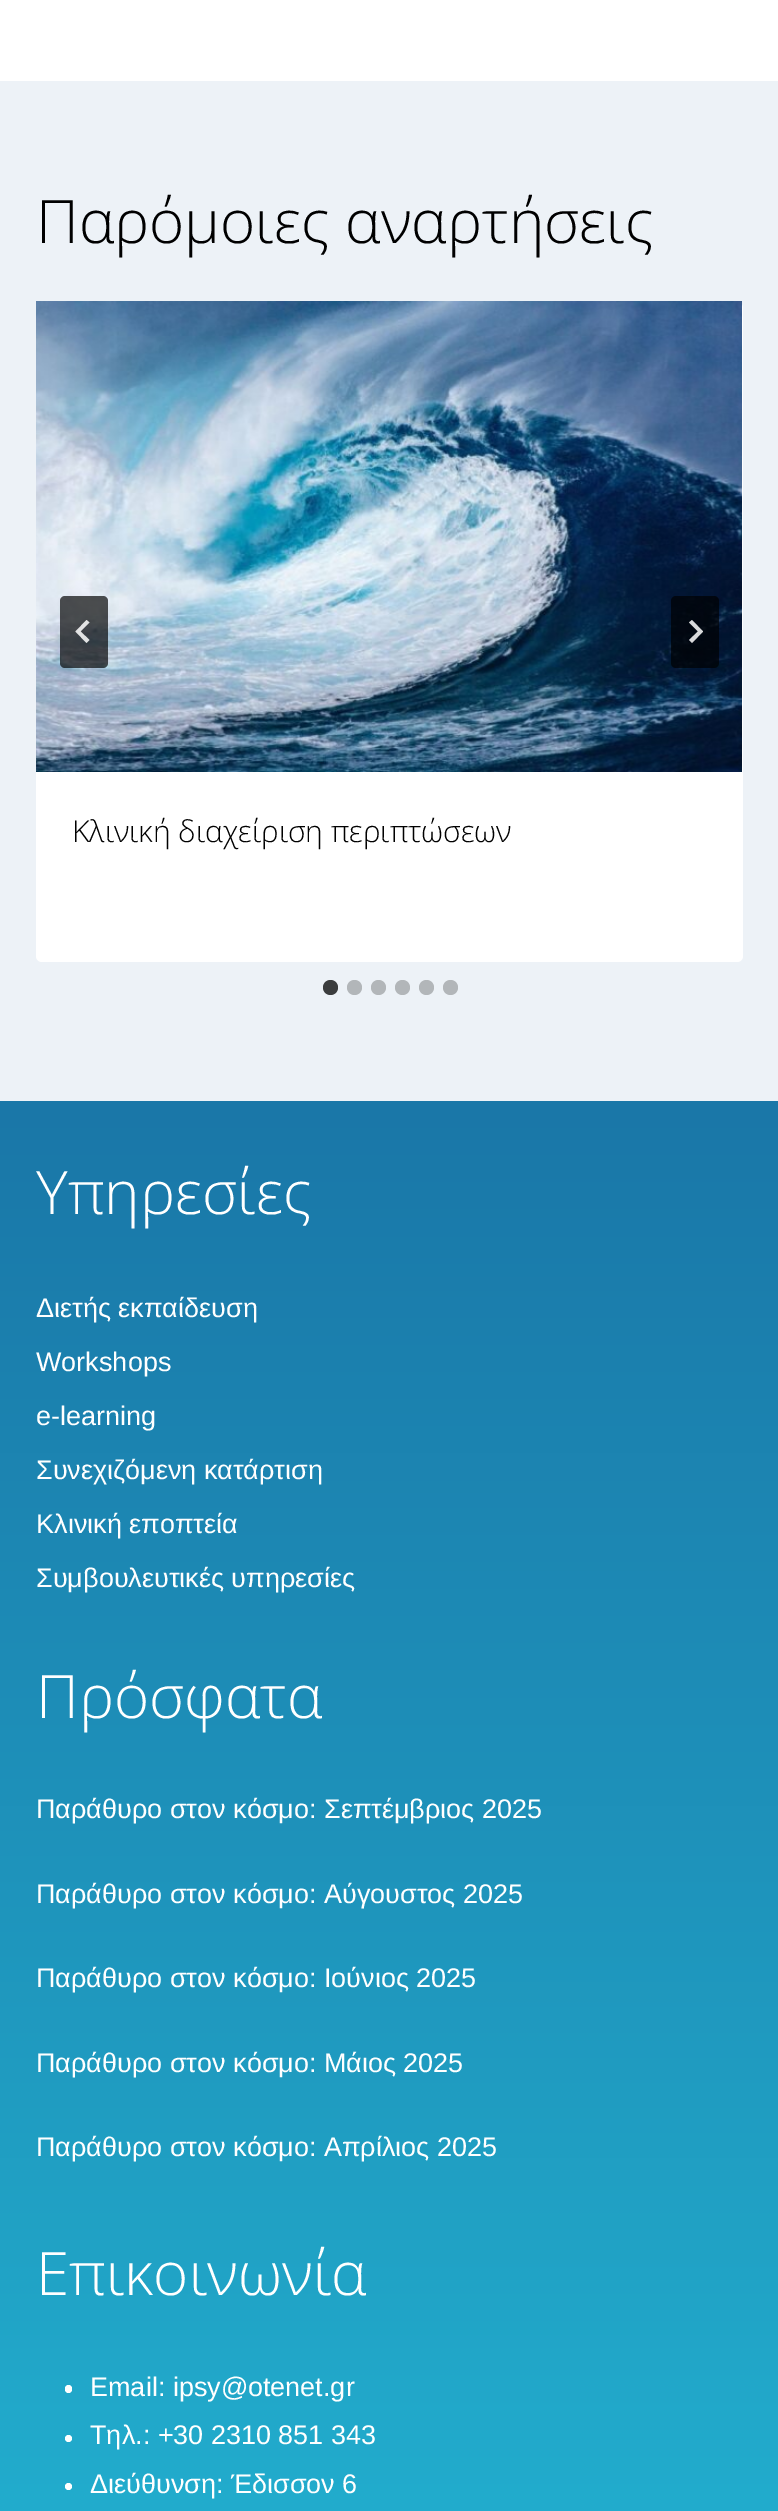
%!PS
<< /PageSize [778 2511] /PageUsesTransparency true >> setpagedevice
/mt/moveto load def
/li/lineto load def
/cp/closepath load def
/fl/fill load def
/gs/gsave load def
/gr/grestore load def
/co { dup -16 bitshift 255 div exch dup -8 bitshift 255 and 255 div exch 255 and 255 div setrgbcolor } def
/fn { [ exch dup neg 0 0 3 -1 roll 0 0 ] selectfont } def
/tx { co fn moveto show } def
/bx { co rectfill } def
/al { dup .setfillconstantalpha .setstrokeconstantalpha } def
/ci { newpath 0 360 arc closepath } def
/rr { 5 dict begin { /r /h /w /y /x } { exch def } forall
  x r add y moveto x w add y 2 copy h add r arct x w add y h add x 1 index r arct
  x y h add x y r arct x y 2 copy exch w add exch r arct closepath end } def
/im { 5 dict begin { /h /w /y /x /name } { exch def } forall
  gsave x y translate w h scale
  w h 8 [w 0 0 h 0 0] name (r) file false 3 colorimage grestore end } def
0 .pushpdf14devicefilter
0 2511 translate 1 -1 scale
4 setmiterlimit
0 0 778 2511 16#FFFFFF bx
0 81 778 1020 16#EDF2F7 bx
16#FFFFFF co
36 302 707 660 6 rr fl
(media/1.raw) 36 301 706 471 im
0.68 al
16#000000 co
60 596 48 72 5 rr fl
0.85 al
16#FFFFFF co
86.5 620 mt 89.5 622.5 li 80.5 631.5 li 89.5 640 li 86.5 643 li 75.5 631.5 li cp fl
0.68 al
16#000000 co
671 596 48 72 5 rr fl
0.85 al
16#FFFFFF co
692 620 mt 689 622.5 li 698 631.5 li 689 640 li 692 643 li 703 631.5 li cp fl
1 al
16#3B3D3E co
330.5 987.5 7.5 ci fl
16#B2B6B9 co
354.5 987.5 7.5 ci fl
378.5 987.5 7.5 ci fl
402.5 987.5 7.5 ci fl
426.5 987.5 7.5 ci fl
450.5 987.5 7.5 ci fl
gs 0 1101 mt 778 1101 li 778 2511 li 0 2511 li cp clip newpath
<< /ShadingType 2 /ColorSpace /DeviceRGB /Coords [389 1101 389 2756] /Extend [true true] /Function << /FunctionType 2 /Domain [0 1] /C0 [.102 .467 .659] /C1 [.137 .71 .827] /N 1 >> >> shfill gr
16#FFFFFF co
65 2385 7 8 3.5 rr fl
68.5 2438.5 3.5 ci fl
68.5 2486.5 3.5 ci fl
(Παρόμοιες αναρτήσεις) 36 243 /OpenSans-Light 60 16#000000 tx
(Κλινική διαχείριση περιπτώσεων) 72 842 /OpenSans-Light 30 16#000000 tx
(Υπηρεσίες) 36 1214 /OpenSans-Light 60 16#FFFFFF tx
(Διετής εκπαίδευση) 36 1317 /LiberationSans-Regular 27 16#FFFFFF tx
(Workshops) 36 1371 /LiberationSans-Regular 27 16#FFFFFF tx
(e-learning) 36 1425 /LiberationSans-Regular 27 16#FFFFFF tx
(Συνεχιζόμενη κατάρτιση) 36 1479 /LiberationSans-Regular 27 16#FFFFFF tx
(Κλινική εποπτεία) 36 1533 /LiberationSans-Regular 27 16#FFFFFF tx
(Συμβουλευτικές υπηρεσίες) 36 1587 /LiberationSans-Regular 27 16#FFFFFF tx
(Πρόσφατα) 36 1718 /OpenSans-Light 60 16#FFFFFF tx
(Παράθυρο στον κόσμο: Σεπτέμβριος 2025) 36 1818 /LiberationSans-Regular 27 16#FFFFFF tx
(Παράθυρο στον κόσμο: Αύγουστος 2025) 36 1903 /LiberationSans-Regular 27 16#FFFFFF tx
(Παράθυρο στον κόσμο: Ιούνιος 2025) 36 1987 /LiberationSans-Regular 27 16#FFFFFF tx
(Παράθυρο στον κόσμο: Μάιος 2025) 36 2072 /LiberationSans-Regular 27 16#FFFFFF tx
(Παράθυρο στον κόσμο: Απρίλιος 2025) 36 2156 /LiberationSans-Regular 27 16#FFFFFF tx
(Επικοινωνία) 36 2295 /OpenSans-Light 60 16#FFFFFF tx
(Email: ipsy@otenet.gr) 90 2396 /LiberationSans-Regular 27 16#FFFFFF tx
(Τηλ.: +30 2310 851 343) 90 2444 /LiberationSans-Regular 27 16#FFFFFF tx
(Διεύθυνση: Έδισσον 6) 90 2493 /LiberationSans-Regular 27 16#FFFFFF tx
.poppdf14devicefilter showpage
